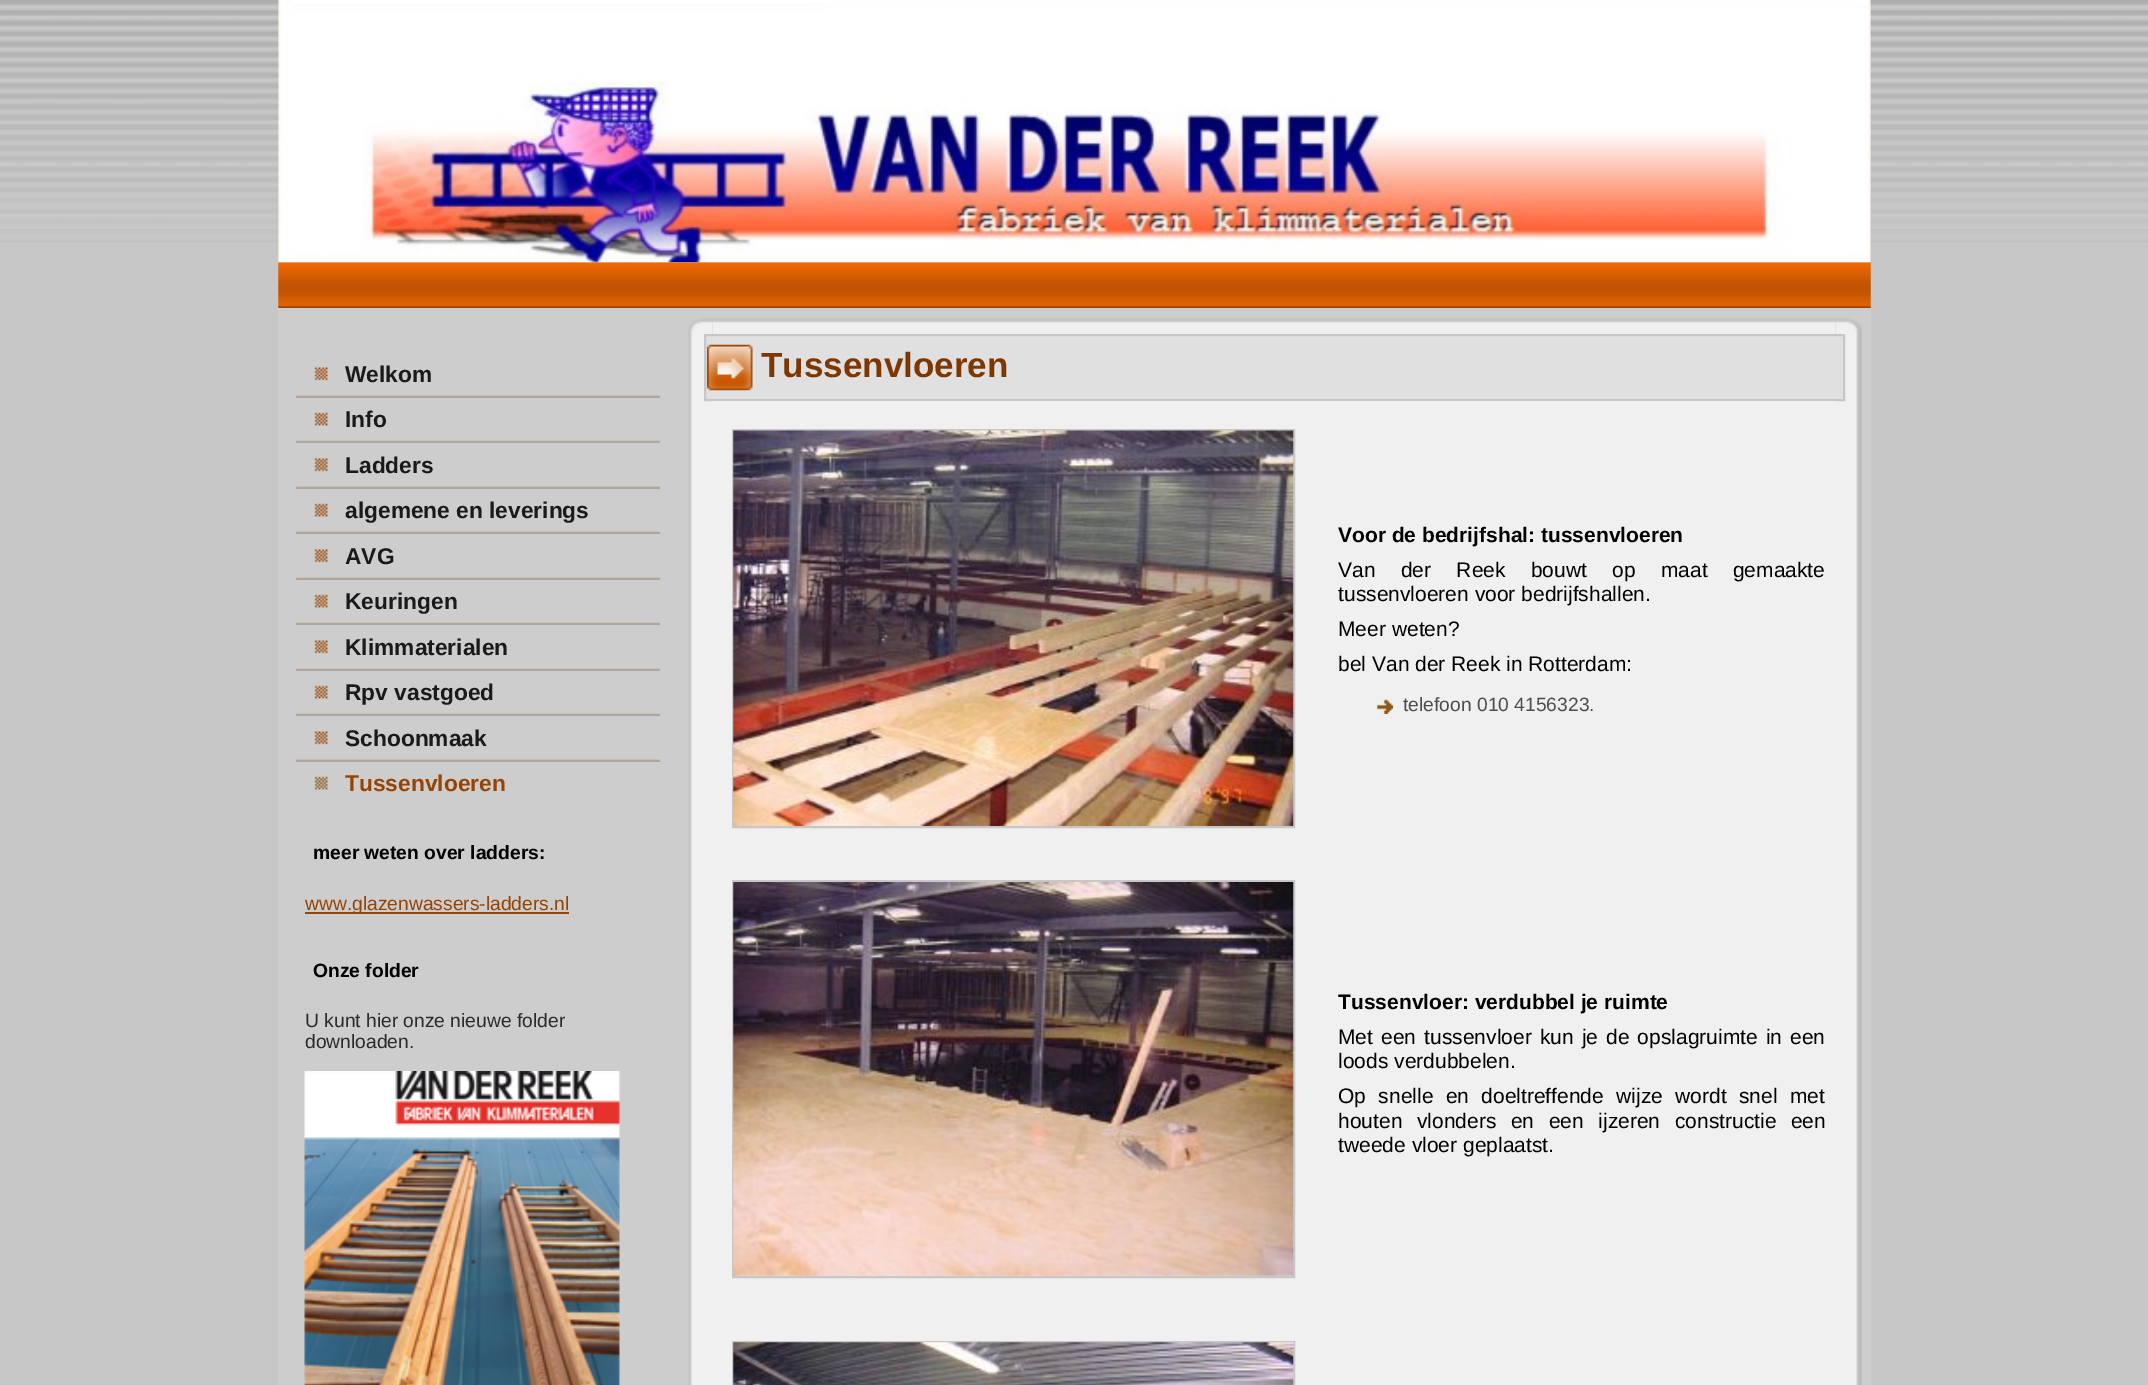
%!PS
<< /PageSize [2148 1385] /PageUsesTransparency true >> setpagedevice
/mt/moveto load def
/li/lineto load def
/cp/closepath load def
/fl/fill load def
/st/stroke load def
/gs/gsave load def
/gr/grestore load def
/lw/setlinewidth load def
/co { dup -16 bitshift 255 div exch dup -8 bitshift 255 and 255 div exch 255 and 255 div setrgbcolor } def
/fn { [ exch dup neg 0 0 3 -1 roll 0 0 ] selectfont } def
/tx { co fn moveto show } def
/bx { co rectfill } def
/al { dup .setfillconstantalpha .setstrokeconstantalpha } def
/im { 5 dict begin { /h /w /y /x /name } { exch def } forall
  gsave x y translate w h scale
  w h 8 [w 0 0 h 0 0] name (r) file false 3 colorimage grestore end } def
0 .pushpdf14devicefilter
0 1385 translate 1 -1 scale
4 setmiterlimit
0 0 2148 1385 16#C7C7C7 bx
(media/1.raw) 0 0 2148 243 im
(media/2.raw) 1870 4 1 1 im
0.1 al
278 6 6 1379 16#FFFFFF bx
284 262 1581 1123 16#FFFFFF bx
1865 6 6 1379 16#FFFFFF bx
1 al
(media/3.raw) 278 0 1593 263 im
(media/4.raw) 278 262 1593 46 im
(media/5.raw) 296 367 333 29 im
(media/6.raw) 628 395 32 1 im
296 396 364 2 16#A8A8A8 bx
(media/7.raw) 296 412 333 29 im
(media/8.raw) 628 440 32 1 im
296 441 364 2 16#A8A8A8 bx
(media/5.raw) 296 458 333 29 im
(media/6.raw) 628 486 32 1 im
296 487 364 2 16#A8A8A8 bx
(media/7.raw) 296 503 333 29 im
(media/8.raw) 628 531 32 1 im
296 532 364 2 16#A8A8A8 bx
(media/5.raw) 296 549 333 29 im
(media/6.raw) 628 577 32 1 im
296 578 364 2 16#A8A8A8 bx
(media/7.raw) 296 594 333 29 im
(media/8.raw) 628 622 32 1 im
296 623 364 2 16#A8A8A8 bx
(media/5.raw) 296 640 333 29 im
(media/6.raw) 628 668 32 1 im
296 669 364 2 16#A8A8A8 bx
(media/7.raw) 296 685 333 29 im
(media/8.raw) 628 713 32 1 im
296 714 364 2 16#A8A8A8 bx
(media/5.raw) 296 731 333 29 im
(media/6.raw) 628 759 32 1 im
296 760 364 2 16#A8A8A8 bx
(media/9.raw) 314 776 14 14 im
305 912 264 2 16#974302 bx
(media/10.raw) 304 1071 316 314 im
(media/11.raw) 688 318 25 25 im
(media/13.raw) 1835 318 27 25 im
(media/12.raw) 712 318 1124 16 im
(media/14.raw) 688 343 24 1042 im
(media/20.raw) 1836 343 26 1042 im
16#E0E0E0 co
705 335 mt 1844 335 li 1844 400 li 705 400 li cp gs fl gr
16#C7C7C7 co
2 lw
st
(media/15.raw) 707 344 46 47 im
712 401 1124 984 16#F0F0F0 bx
16#C7C7C7 co
733 430 561 397 rectstroke
(media/16.raw) 733 430 561 396 im
(media/17.raw) 1377 699 16 15 im
733 881 561 396 rectstroke
(media/18.raw) 733 882 561 394 im
733 1342 561 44 rectstroke
(media/19.raw) 733 1342 561 43 im
(Welkom) 345 382 /LiberationSans-Bold 22.75 16#1A1A1A tx
(Info) 345 427 /LiberationSans-Bold 22.75 16#1A1A1A tx
(Ladders) 345 473 /LiberationSans-Bold 22.75 16#1A1A1A tx
(algemene en leverings) 345 518 /LiberationSans-Bold 22.75 16#1A1A1A tx
(AVG) 345 564 /LiberationSans-Bold 22.75 16#1A1A1A tx
(Keuringen) 345 609 /LiberationSans-Bold 22.75 16#1A1A1A tx
(Klimmaterialen) 345 655 /LiberationSans-Bold 22.75 16#1A1A1A tx
(Rpv vastgoed) 345 700 /LiberationSans-Bold 22.75 16#1A1A1A tx
(Schoonmaak) 345 746 /LiberationSans-Bold 22.75 16#1A1A1A tx
(Tussenvloeren) 345 791 /LiberationSans-Bold 22.75 16#974302 tx
(meer weten over ladders:) 313 859 /LiberationSans-Bold 19.25 16#000000 tx
(www.glazenwassers-ladders.nl) 305 910 /LiberationSans-Regular 19.25 16#974302 tx
(Onze folder) 313 977 /LiberationSans-Bold 19.25 16#000000 tx
(U kunt hier onze nieuwe folder) 305 1027 /LiberationSans-Regular 19.25 16#2B2B2B tx
(downloaden.) 305 1048 /LiberationSans-Regular 19.25 16#2B2B2B tx
(Tussenvloeren) 761 377 /LiberationSans-Bold 35 16#7E3701 tx
(Voor de bedrijfshal: tussenvloeren) 1338 542 /LiberationSans-Bold 21 16#000000 tx
/LiberationSans-Regular 21 fn
1338 577 mt 19.5 0 32 (Van der Reek bouwt op maat gemaakte) widthshow
(tussenvloeren voor bedrijfshallen.) 1338 601 /LiberationSans-Regular 21 16#000000 tx
(Meer weten?) 1338 636 /LiberationSans-Regular 21 16#000000 tx
(bel Van der Reek in Rotterdam:) 1338 671 /LiberationSans-Regular 21 16#000000 tx
(telefoon 010 4156323.) 1403 711 /LiberationSans-Regular 19.25 16#4D4D4D tx
(Tussenvloer: verdubbel je ruimte) 1338 1009 /LiberationSans-Bold 21 16#000000 tx
/LiberationSans-Regular 21 fn
1338 1044 mt 2.25 0 32 (Met een tussenvloer kun je de opslagruimte in een) widthshow
(loods verdubbelen.) 1338 1068 /LiberationSans-Regular 21 16#000000 tx
1338 1103 mt 6.5 0 32 (Op snelle en doeltreffende wijze wordt snel met) widthshow
1338 1128 mt 8.75 0 32 (houten vlonders en een ijzeren constructie een) widthshow
(tweede vloer geplaatst.) 1338 1152 /LiberationSans-Regular 21 16#000000 tx
.poppdf14devicefilter showpage
